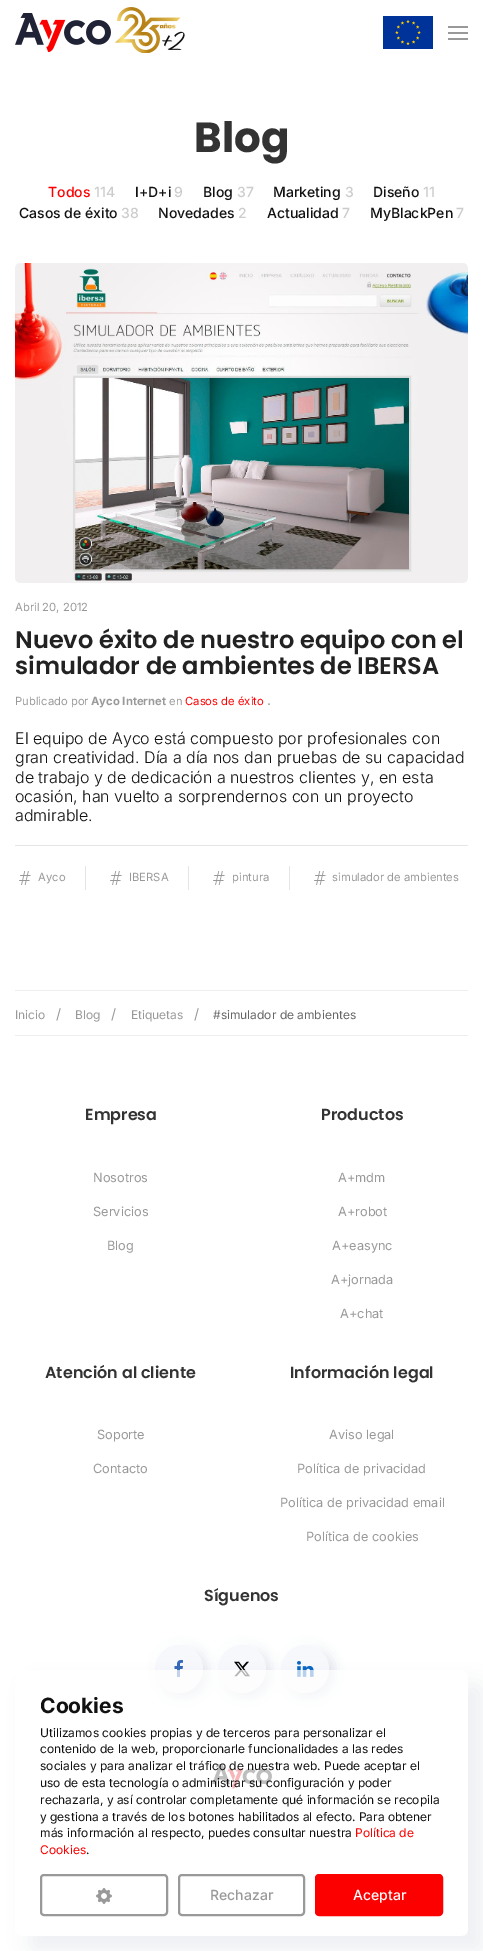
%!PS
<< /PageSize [483 1951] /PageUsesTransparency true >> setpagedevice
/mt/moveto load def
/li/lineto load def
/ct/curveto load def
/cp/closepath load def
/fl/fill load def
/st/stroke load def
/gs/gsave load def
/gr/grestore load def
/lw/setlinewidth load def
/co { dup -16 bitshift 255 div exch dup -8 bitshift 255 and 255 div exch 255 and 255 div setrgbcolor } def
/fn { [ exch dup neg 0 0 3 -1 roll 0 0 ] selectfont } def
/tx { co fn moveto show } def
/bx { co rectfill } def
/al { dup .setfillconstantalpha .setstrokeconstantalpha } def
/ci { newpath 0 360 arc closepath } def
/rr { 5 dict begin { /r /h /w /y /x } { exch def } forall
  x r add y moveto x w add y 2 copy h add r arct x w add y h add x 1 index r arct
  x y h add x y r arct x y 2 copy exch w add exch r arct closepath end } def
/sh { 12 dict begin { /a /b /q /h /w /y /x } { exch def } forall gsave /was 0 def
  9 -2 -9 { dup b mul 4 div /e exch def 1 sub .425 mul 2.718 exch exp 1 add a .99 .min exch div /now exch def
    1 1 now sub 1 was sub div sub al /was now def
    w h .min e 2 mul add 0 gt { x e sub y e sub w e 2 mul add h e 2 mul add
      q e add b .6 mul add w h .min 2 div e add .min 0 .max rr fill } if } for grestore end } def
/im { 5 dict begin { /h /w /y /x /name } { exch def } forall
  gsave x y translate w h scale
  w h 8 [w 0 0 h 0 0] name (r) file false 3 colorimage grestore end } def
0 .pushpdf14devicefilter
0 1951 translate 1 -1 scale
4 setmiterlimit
0 0 483 1951 16#FFFFFF bx
(media/1.raw) 15 13 96 39 im
(media/2.raw) 115 7 70 46 im
(media/3.raw) 383 16 50 33 im
448 26 20 2 16#999999 bx
448 32 20 2 16#999999 bx
448 38 20 2 16#999999 bx
(media/4.raw) 15 263 453 320 im
15 845 453 1 16#E5E5E5 bx
(media/5.raw) 19 871 12 14 im
85 866 1 24 16#E5E5E5 bx
(media/5.raw) 110 871 12 14 im
188 866 1 24 16#E5E5E5 bx
(media/5.raw) 213 871 12 14 im
289 866 1 24 16#E5E5E5 bx
(media/5.raw) 314 871 12 14 im
15 990 453 1 16#EEEEEE bx
15 1035 453 1 16#EEEEEE bx
16#39417C co
159 1649 48 48 24 6 .2 sh
16#FFFFFF co
150 1640 48 48 24 7.5 .9 sh
16#F7F8FC co
179 1669 24 ci fl
(media/6.raw) 174 1660 9 17 im
16#39417C co
222 1649 48 48 24 6 .2 sh
16#FFFFFF co
213 1640 48 48 24 7.5 .9 sh
16#F7F8FC co
242 1669 24 ci fl
(media/7.raw) 234 1661 16 16 im
16#39417C co
285 1649 48 48 24 6 .2 sh
16#FFFFFF co
276 1640 48 48 24 7.5 .9 sh
16#F7F8FC co
305 1669 24 ci fl
(media/8.raw) 297 1661 17 16 im
(media/9.raw) 212 1764 60 25 im
gs
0 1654 mt 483 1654 li 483 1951 li 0 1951 li cp 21 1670 mt 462 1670 li 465.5 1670 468 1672.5 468 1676 ct 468 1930 li 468 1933.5 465.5 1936 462 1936 ct 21 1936 li 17.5 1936 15 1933.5 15 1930 ct 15 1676 li 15 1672.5 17.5 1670 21 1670 ct cp eoclip newpath
16#39417C co
30 1685 453 266 6 10 .08 sh
gr
0.7 al
16#FFFFFF co
15 1670 453 266 6 rr fl
1 al
16#999999 co
2 lw
41 1875 126 40 3 rr st
(media/10.raw) 96 1888 16 16 im
179 1875 125 40 3 rr st
16#FC0000 co
316 1875 126 40 3 rr gs fl gr
st
(Blog) 194 152 /Poppins-Bold 42 16#333333 tx
(Todos) 48 197 /Inter-Medium 14 16#FC0000 tx
(114) 94 197 /Inter-Medium 14 16#CCCCCC tx
(I+D+i) 135 197 /Inter-Medium 14 16#111111 tx
(9) 174 197 /Inter-Medium 14 16#CCCCCC tx
(Blog) 203 197 /Inter-Medium 14 16#111111 tx
(37) 237 197 /Inter-Medium 14 16#CCCCCC tx
(Marketing) 273 197 /Inter-Medium 14 16#111111 tx
(3) 345 197 /Inter-Medium 14 16#CCCCCC tx
(Diseño) 373 197 /Inter-Medium 14 16#111111 tx
(11) 423 197 /Inter-Medium 14 16#CCCCCC tx
(Casos de éxito) 19 218 /Inter-Medium 14 16#111111 tx
(38) 121 218 /Inter-Medium 14 16#CCCCCC tx
(Novedades) 158 218 /Inter-Medium 14 16#111111 tx
(2) 238 218 /Inter-Medium 14 16#CCCCCC tx
(Actualidad) 267 218 /Inter-Medium 14 16#111111 tx
(7) 342 218 /Inter-Medium 14 16#CCCCCC tx
(MyBlackPen) 370 218 /Inter-Medium 14 16#111111 tx
(7) 456 218 /Inter-Medium 14 16#CCCCCC tx
(Abril 20, 2012) 15 611 /Inter-Regular 11.25 16#999999 tx
(Nuevo éxito de nuestro equipo con el) 15 648 /Poppins-SemiBold 24 16#222222 tx
(simulador de ambientes de IBERSA) 15 674 /Poppins-SemiBold 24 16#222222 tx
(Publicado por) 15 705 /Inter-Regular 11.25 16#999999 tx
(Ayco Internet) 91 705 /Inter-Bold 11.25 16#999999 tx
(en) 169 705 /Inter-Regular 11.25 16#999999 tx
(Casos de éxito) 185 705 /Inter-Regular 11.25 16#FC0000 tx
(.) 267 705 /Inter-Regular 14 16#999999 tx
(El equipo de Ayco está compuesto por profesionales con) 15 744 /Inter-Light 16 16#111111 tx
(gran creatividad. Día a día nos dan pruebas de su capacidad) 15 763 /Inter-Light 16 16#111111 tx
(de trabajo y de dedicación a nuestros clientes y, en esta) 15 783 /Inter-Light 16 16#111111 tx
(ocasión, han vuelto a sorprendernos con un proyecto) 15 802 /Inter-Light 16 16#111111 tx
(admirable.) 15 821 /Inter-Light 16 16#111111 tx
(Ayco) 38 881 /Inter-Regular 11.25 16#999999 tx
(IBERSA) 129 881 /Inter-Regular 11.25 16#999999 tx
(pintura) 232 881 /Inter-Regular 11.25 16#999999 tx
(simulador de ambientes) 332 881 /Inter-Regular 11.25 16#999999 tx
(Inicio) 15 1019 /Inter-Regular 12 16#999999 tx
(/) 56 1019 /Inter-Regular 14 16#999999 tx
(Blog) 75 1019 /Inter-Regular 12 16#999999 tx
(/) 111 1019 /Inter-Regular 14 16#999999 tx
(Etiquetas) 131 1019 /Inter-Regular 12 16#999999 tx
(/) 194 1019 /Inter-Regular 14 16#999999 tx
(#simulador de ambientes) 213 1019 /Inter-Regular 12 16#666666 tx
(Empresa) 85 1120 /Poppins-SemiBold 16 16#333333 tx
(Nosotros) 93 1182 /Inter-Regular 12.75 16#999999 tx
(Servicios) 93 1216 /Inter-Regular 12.75 16#999999 tx
(Blog) 107 1250 /Inter-Regular 12.75 16#999999 tx
(Productos) 321 1120 /Poppins-SemiBold 16 16#333333 tx
(A+mdm) 338 1182 /Inter-Regular 12.75 16#999999 tx
(A+robot) 338 1216 /Inter-Regular 12.75 16#999999 tx
(A+easync) 332 1250 /Inter-Regular 12.75 16#999999 tx
(A+jornada) 331 1284 /Inter-Regular 12.75 16#999999 tx
(A+chat) 340 1318 /Inter-Regular 12.75 16#999999 tx
(Atención al cliente) 45 1378 /Poppins-SemiBold 16 16#333333 tx
(Soporte) 97 1439 /Inter-Regular 12.75 16#999999 tx
(Contacto) 93 1473 /Inter-Regular 12.75 16#999999 tx
(Información legal) 290 1378 /Poppins-SemiBold 16 16#333333 tx
(Aviso legal) 329 1439 /Inter-Regular 12.75 16#999999 tx
(Política de privacidad) 297 1473 /Inter-Regular 12.75 16#999999 tx
(Política de privacidad email) 280 1507 /Inter-Regular 12.75 16#999999 tx
(Política de cookies) 306 1541 /Inter-Regular 12.75 16#999999 tx
(Síguenos) 204 1601 /Poppins-SemiBold 16 16#333333 tx
(Cookies) 40 1713 /Inter-Bold 21 16#111111 tx
(Utilizamos cookies propias y de terceros para personalizar el) 40 1737 /Inter-Regular 12 16#111111 tx
(contenido de la web, proporcionarle funcionalidades a las redes) 40 1753 /Inter-Regular 12 16#111111 tx
(sociales y para analizar el tráfico de nuestra web. Puede aceptar el) 40 1770 /Inter-Regular 12 16#111111 tx
(uso de esta tecnología o administrar su configuración y poder) 40 1787 /Inter-Regular 12 16#111111 tx
(rechazarla, y así controlar completamente qué información se recopila) 40 1804 /Inter-Regular 12 16#111111 tx
(y gestiona a través de los botones habilitados al efecto. Para obtener) 40 1821 /Inter-Regular 12 16#111111 tx
(más información al respecto, puedes consultar nuestra) 40 1837 /Inter-Regular 12 16#111111 tx
(Política de) 355 1837 /Inter-Regular 12 16#FC0000 tx
(Cookies) 40 1854 /Inter-Regular 12 16#FC0000 tx
(.) 86 1854 /Inter-Regular 12 16#111111 tx
(Rechazar) 210 1900 /Inter-Medium 14 16#999999 tx
(Aceptar) 353 1900 /Inter-Medium 14 16#FFFFFF tx
.poppdf14devicefilter showpage
